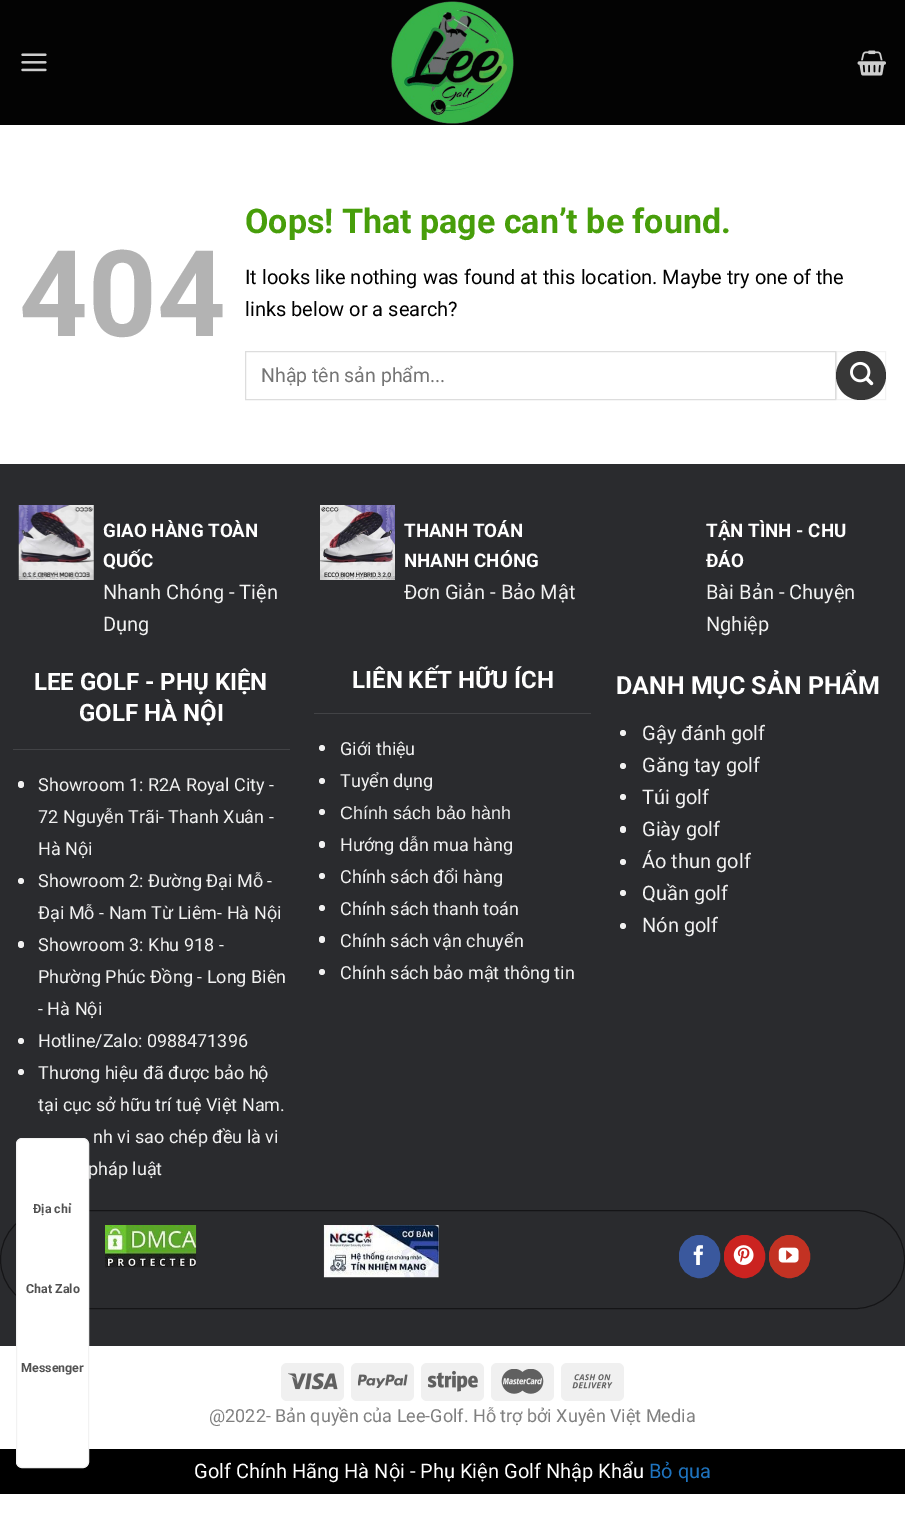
%!PS
<< /PageSize [905 1529] /PageUsesTransparency true >> setpagedevice
/fl/fill load def
/st/stroke load def
/gs/gsave load def
/gr/grestore load def
/co { dup -16 bitshift 255 div exch dup -8 bitshift 255 and 255 div exch 255 and 255 div setrgbcolor } def
/fn { [ exch dup neg 0 0 3 -1 roll 0 0 ] selectfont } def
/tx { co fn moveto show } def
/bx { co rectfill } def
/al { dup .setfillconstantalpha .setstrokeconstantalpha } def
/ci { newpath 0 360 arc closepath } def
/rr { 5 dict begin { /r /h /w /y /x } { exch def } forall
  x r add y moveto x w add y 2 copy h add r arct x w add y h add x 1 index r arct
  x y h add x y r arct x y 2 copy exch w add exch r arct closepath end } def
/im { 5 dict begin { /h /w /y /x /name } { exch def } forall
  gsave x y translate w h scale
  w h 8 [w 0 0 h 0 0] name (r) file false 3 colorimage grestore end } def
0 .pushpdf14devicefilter
0 1529 translate 1 -1 scale
4 setmiterlimit
0 0 905 1529 16#FFFFFF bx
0 0 905 125 16#030303 bx
(media/1.raw) 21 53 26 19 im
(media/2.raw) 391 1 123 123 im
(media/3.raw) 857 50 29 26 im
16#DDDDDD co
245.5 351.5 590 48 rectstroke
16#383838 co
836 351 50 49 24.5 rr fl
0.05 al
16#000000 co
836.5 351.5 49 48 rectstroke
1 al
(media/4.raw) 850 361 24 25 im
0 464 905 882 16#2A2B2E bx
(media/5.raw) 18 505 76 75 im
(media/6.raw) 320 505 75 75 im
13 749 277 1 16#424346 bx
16#F1F1F1 co
18 781 6 7 3 rr fl
21 881 3 ci fl
18 941 6 7 3 rr fl
21 1041 3 ci fl
21 1072 3 ci fl
314 713 277 1 16#424346 bx
16#F1F1F1 co
322 748 3 ci fl
322 781 3 ci fl
322 812 3 ci fl
319 841 6 7 3 rr fl
322 876 3 ci fl
322 908 3 ci fl
319 936 6 7 3 rr fl
322 972 3 ci fl
623 733 3 ci fl
623 766 3 ci fl
623 797 3 ci fl
620 826 6 7 3 rr fl
623 862 3 ci fl
623 893 3 ci fl
623 926 3 ci fl
16#151517 co
.5 1210.5 904 98 49 rr st
(media/7.raw) 105 1225 92 43 im
(media/8.raw) 323 1225 116 53 im
16#3A589D co
679.5 1235.5 40 42 20 rr gs fl gr
st
(media/9.raw) 693 1245 10 20 im
16#CB2320 co
724.5 1235.5 40 42 20 rr gs fl gr
st
(media/10.raw) 733 1245 21 20 im
16#C33223 co
769.5 1235.5 40 42 20 rr gs fl gr
st
(media/11.raw) 778 1247 21 16 im
16#F0F0F0 co
281 1363 63 38 6 rr fl
(media/12.raw) 288 1373 50 17 im
351 1363 63 38 6 rr fl
(media/13.raw) 358 1374 50 14 im
421 1363 63 38 6 rr fl
(media/14.raw) 428 1370 50 22 im
491 1363 63 38 6 rr fl
(media/15.raw) 501 1369 43 25 im
561 1363 63 38 6 rr fl
(media/16.raw) 572 1374 41 15 im
0 1449 905 45 16#000000 bx
16#FFFFFF co
16.5 1138.5 72 329 5.5 rr gs fl gr
16#F2F2F2 co
st
(404) 19 336 /Roboto-Bold 120 16#B3B3B3 tx
(Oops! That page can’t be found.) 245 233 /Roboto-Bold 34 16#479E0A tx
(It looks like nothing was found at this location. Maybe try one of the) 245 284 /Roboto-Regular 20 16#000000 tx
(links below or a search?) 245 316 /Roboto-Regular 20 16#000000 tx
(Nhập tên sản phẩm...) 261 382 /Roboto-Regular 19.5 16#757575 tx
(GIAO HÀNG TOÀN) 103 537 /Roboto-Bold 18.75 16#FFFFFF tx
(QUỐC) 103 567 /Roboto-Bold 18.75 16#FFFFFF tx
(Nhanh Chóng - Tiện) 103 599 /Roboto-Regular 20 16#F1F1F1 tx
(Dụng) 103 631 /Roboto-Regular 20 16#F1F1F1 tx
(THANH TOÁN) 404 537 /Roboto-Bold 18.75 16#FFFFFF tx
(NHANH CHÓNG) 404 567 /Roboto-Bold 18.75 16#FFFFFF tx
(Đơn Giản - Bảo Mật) 404 599 /Roboto-Regular 20 16#F1F1F1 tx
(TẬN TÌNH - CHU) 706 537 /Roboto-Bold 18.75 16#FFFFFF tx
(ĐÁO) 706 567 /Roboto-Bold 18.75 16#FFFFFF tx
(Bài Bản - Chuyện) 706 599 /Roboto-Regular 20 16#F1F1F1 tx
(Nghiệp) 706 631 /Roboto-Regular 20 16#F1F1F1 tx
(LEE GOLF - PHỤ KIỆN) 34 690 /Roboto-Bold 24 16#FFFFFF tx
(GOLF HÀ NỘI) 79 721 /Roboto-Bold 24 16#FFFFFF tx
(Showroom 1: R2A Royal City -) 38 791 /Roboto-Regular 18 16#F1F1F1 tx
(72 Nguyễn Trãi- Thanh Xuân -) 38 823 /Roboto-Regular 18 16#F1F1F1 tx
(Hà Nội) 38 855 /Roboto-Regular 18 16#F1F1F1 tx
(Showroom 2: Đường Đại Mỗ -) 38 887 /Roboto-Regular 18 16#F1F1F1 tx
(Đại Mỗ - Nam Từ Liêm- Hà Nội) 38 919 /Roboto-Regular 18 16#F1F1F1 tx
(Showroom 3: Khu 918 -) 38 951 /Roboto-Regular 18 16#F1F1F1 tx
(Phường Phúc Đồng - Long Biên) 38 983 /Roboto-Regular 18 16#F1F1F1 tx
(- Hà Nội) 38 1015 /Roboto-Regular 18 16#F1F1F1 tx
(Hotline/Zalo: 0988471396) 38 1047 /Roboto-Regular 18 16#F1F1F1 tx
(Thương hiệu đã được bảo hộ) 38 1079 /Roboto-Regular 18 16#F1F1F1 tx
(tại cục sở hữu trí tuệ Việt Nam.) 38 1111 /Roboto-Regular 18 16#F1F1F1 tx
(nh vi sao chép đều là vi) 93 1143 /Roboto-Regular 18 16#F1F1F1 tx
(pháp luật) 88 1175 /Roboto-Regular 18 16#F1F1F1 tx
(LIÊN KẾT HỮU ÍCH) 352 688 /Roboto-Bold 24 16#FFFFFF tx
(Giới thiệu) 340 755 /Roboto-Regular 18 16#F1F1F1 tx
(Tuyển dụng) 340 787 /Roboto-Regular 18 16#F1F1F1 tx
(Chính sách bảo hành) 340 819 /LiberationSans-Regular 18 16#F1F1F1 tx
(Hướng dẫn mua hàng) 340 851 /Roboto-Regular 18 16#F1F1F1 tx
(Chính sách đổi hàng) 340 883 /Roboto-Regular 18 16#F1F1F1 tx
(Chính sách thanh toán) 340 915 /Roboto-Regular 18 16#F1F1F1 tx
(Chính sách vận chuyển) 340 947 /Roboto-Regular 18 16#F1F1F1 tx
(Chính sách bảo mật thông tin) 340 979 /Roboto-Regular 18 16#F1F1F1 tx
(DANH MỤC SẢN PHẨM) 616 694 /Roboto-Bold 25 16#FFFFFF tx
(Gậy đánh golf) 642 740 /Roboto-Regular 20 16#F1F1F1 tx
(Găng tay golf) 642 772 /Roboto-Regular 20 16#F1F1F1 tx
(Túi golf) 642 804 /Roboto-Regular 20 16#F1F1F1 tx
(Giày golf) 642 836 /Roboto-Regular 20 16#F1F1F1 tx
(Áo thun golf) 642 868 /Roboto-Regular 20 16#F1F1F1 tx
(Quần golf) 642 900 /Roboto-Regular 20 16#F1F1F1 tx
(Nón golf) 642 932 /Roboto-Regular 20 16#F1F1F1 tx
(@2022- Bản quyền của Lee-Golf. Hỗ trợ bởi Xuyên Việt Media) 209 1422 /Roboto-Regular 18 16#808080 tx
(Địa chỉ) 33 1213 /Roboto-Bold 12.5 16#515151 tx
(Chat Zalo) 26 1293 /Roboto-Bold 12.5 16#515151 tx
(Messenger) 21 1372 /Roboto-Bold 12.5 16#515151 tx
(Golf Chính Hãng Hà Nội - Phụ Kiện Golf Nhập Khẩu) 194 1478 /Roboto-Regular 20 16#FFFFFF tx
(Bỏ qua) 649 1478 /Roboto-Regular 20 16#1E73BE tx
.poppdf14devicefilter showpage
